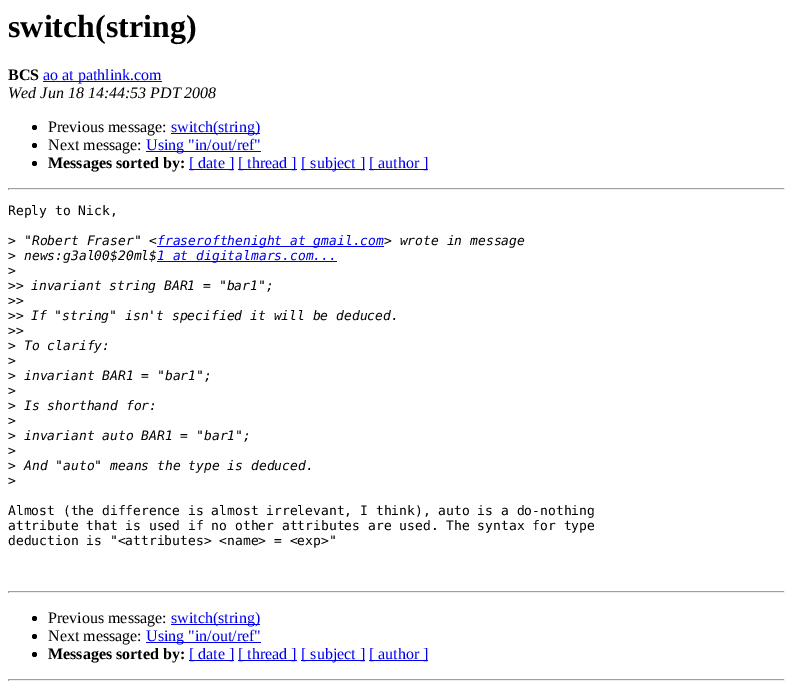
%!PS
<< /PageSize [793 690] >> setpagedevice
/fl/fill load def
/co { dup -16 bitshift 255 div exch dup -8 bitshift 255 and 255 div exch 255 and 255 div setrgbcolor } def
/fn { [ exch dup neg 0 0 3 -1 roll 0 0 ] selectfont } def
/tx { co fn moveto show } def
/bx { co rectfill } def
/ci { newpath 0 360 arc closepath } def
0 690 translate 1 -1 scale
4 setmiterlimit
0 0 793 690 16#FFFFFF bx
43 81 119 1 16#0000EE bx
16#000000 co
34.5 127.5 2.5 ci fl
171 133 89 1 16#0000EE bx
16#000000 co
34.5 145.5 2.5 ci fl
146 151 115 1 16#0000EE bx
16#000000 co
34.5 163.5 2.5 ci fl
189 169 45 1 16#0000EE bx
238 169 59 1 16#0000EE bx
301 169 64 1 16#0000EE bx
369 169 59 1 16#0000EE bx
8 188 777 1 16#9F9F9F bx
784 188 1 2 16#EEEEEE bx
8 189 777 1 16#EEEEEE bx
8 188 1 2 16#9F9F9F bx
157 246 227 1 16#0000EE bx
157 261 180 1 16#0000EE bx
8 591 777 1 16#9F9F9F bx
784 591 1 2 16#EEEEEE bx
8 592 777 1 16#EEEEEE bx
8 591 1 2 16#9F9F9F bx
16#000000 co
34.5 618.5 2.5 ci fl
171 624 89 1 16#0000EE bx
16#000000 co
34.5 636.5 2.5 ci fl
146 642 115 1 16#0000EE bx
16#000000 co
34.5 654.5 2.5 ci fl
189 660 45 1 16#0000EE bx
238 660 59 1 16#0000EE bx
301 660 64 1 16#0000EE bx
369 660 59 1 16#0000EE bx
8 679 777 1 16#9F9F9F bx
784 679 1 2 16#EEEEEE bx
8 680 777 1 16#EEEEEE bx
8 679 1 2 16#9F9F9F bx
(switch\(string\)) 8 37 /LiberationSerif-Bold 32 16#000000 tx
(BCS) 8 80 /LiberationSerif-Bold 16 16#000000 tx
(ao at pathlink.com) 43 80 /LiberationSerif-Regular 16 16#0000EE tx
(Wed Jun 18 14:44:53 PDT 2008) 8 98 /LiberationSerif-Italic 16 16#000000 tx
(Previous message:) 48 132 /LiberationSerif-Regular 16 16#000000 tx
(switch\(string\)) 171 132 /LiberationSerif-Regular 16 16#0000EE tx
(Next message:) 48 150 /LiberationSerif-Regular 16 16#000000 tx
(Using "in/out/ref") 146 150 /LiberationSerif-Regular 16 16#0000EE tx
(Messages sorted by:) 48 168 /LiberationSerif-Bold 16 16#000000 tx
([ date ]) 189 168 /LiberationSerif-Regular 16 16#0000EE tx
([ thread ]) 238 168 /LiberationSerif-Regular 16 16#0000EE tx
([ subject ]) 301 168 /LiberationSerif-Regular 16 16#0000EE tx
([ author ]) 369 168 /LiberationSerif-Regular 16 16#0000EE tx
(Reply to Nick,) 8 215 /DejaVuSansMono-Regular 13 16#000000 tx
(>) 8 245 /DejaVuSansMono-Regular 13 16#000000 tx
("Robert Fraser" <) 24 245 /DejaVuSansMono-Italic 13 16#000000 tx
(fraserofthenight at gmail.com) 157 245 /DejaVuSansMono-Italic 13 16#0000EE tx
(> wrote in message) 384 245 /DejaVuSansMono-Italic 13 16#000000 tx
(>) 8 260 /DejaVuSansMono-Regular 13 16#000000 tx
(news:g3al00$20ml$) 24 260 /DejaVuSansMono-Italic 13 16#000000 tx
(1 at digitalmars.com...) 157 260 /DejaVuSansMono-Italic 13 16#0000EE tx
(>) 8 275 /DejaVuSansMono-Regular 13 16#000000 tx
(>>) 8 290 /DejaVuSansMono-Regular 13 16#000000 tx
(invariant string BAR1 = "bar1";) 31 290 /DejaVuSansMono-Italic 13 16#000000 tx
(>>) 8 305 /DejaVuSansMono-Regular 13 16#000000 tx
(>>) 8 320 /DejaVuSansMono-Regular 13 16#000000 tx
(If "string" isn't specified it will be deduced.) 31 320 /DejaVuSansMono-Italic 13 16#000000 tx
(>>) 8 335 /DejaVuSansMono-Regular 13 16#000000 tx
(>) 8 350 /DejaVuSansMono-Regular 13 16#000000 tx
(To clarify:) 24 350 /DejaVuSansMono-Italic 13 16#000000 tx
(>) 8 365 /DejaVuSansMono-Regular 13 16#000000 tx
(>) 8 380 /DejaVuSansMono-Regular 13 16#000000 tx
(invariant BAR1 = "bar1";) 24 380 /DejaVuSansMono-Italic 13 16#000000 tx
(>) 8 395 /DejaVuSansMono-Regular 13 16#000000 tx
(>) 8 410 /DejaVuSansMono-Regular 13 16#000000 tx
(Is shorthand for:) 24 410 /DejaVuSansMono-Italic 13 16#000000 tx
(>) 8 425 /DejaVuSansMono-Regular 13 16#000000 tx
(>) 8 440 /DejaVuSansMono-Regular 13 16#000000 tx
(invariant auto BAR1 = "bar1";) 24 440 /DejaVuSansMono-Italic 13 16#000000 tx
(>) 8 455 /DejaVuSansMono-Regular 13 16#000000 tx
(>) 8 470 /DejaVuSansMono-Regular 13 16#000000 tx
(And "auto" means the type is deduced.) 24 470 /DejaVuSansMono-Italic 13 16#000000 tx
(>) 8 485 /DejaVuSansMono-Regular 13 16#000000 tx
(Almost \(the difference is almost irrelevant, I think\), auto is a do-nothing) 8 515 /DejaVuSansMono-Regular 13 16#000000 tx
(attribute that is used if no other attributes are used. The syntax for type) 8 530 /DejaVuSansMono-Regular 13 16#000000 tx
(deduction is "<attributes> <name> = <exp>") 8 545 /DejaVuSansMono-Regular 13 16#000000 tx
(Previous message:) 48 623 /LiberationSerif-Regular 16 16#000000 tx
(switch\(string\)) 171 623 /LiberationSerif-Regular 16 16#0000EE tx
(Next message:) 48 641 /LiberationSerif-Regular 16 16#000000 tx
(Using "in/out/ref") 146 641 /LiberationSerif-Regular 16 16#0000EE tx
(Messages sorted by:) 48 659 /LiberationSerif-Bold 16 16#000000 tx
([ date ]) 189 659 /LiberationSerif-Regular 16 16#0000EE tx
([ thread ]) 238 659 /LiberationSerif-Regular 16 16#0000EE tx
([ subject ]) 301 659 /LiberationSerif-Regular 16 16#0000EE tx
([ author ]) 369 659 /LiberationSerif-Regular 16 16#0000EE tx
showpage
